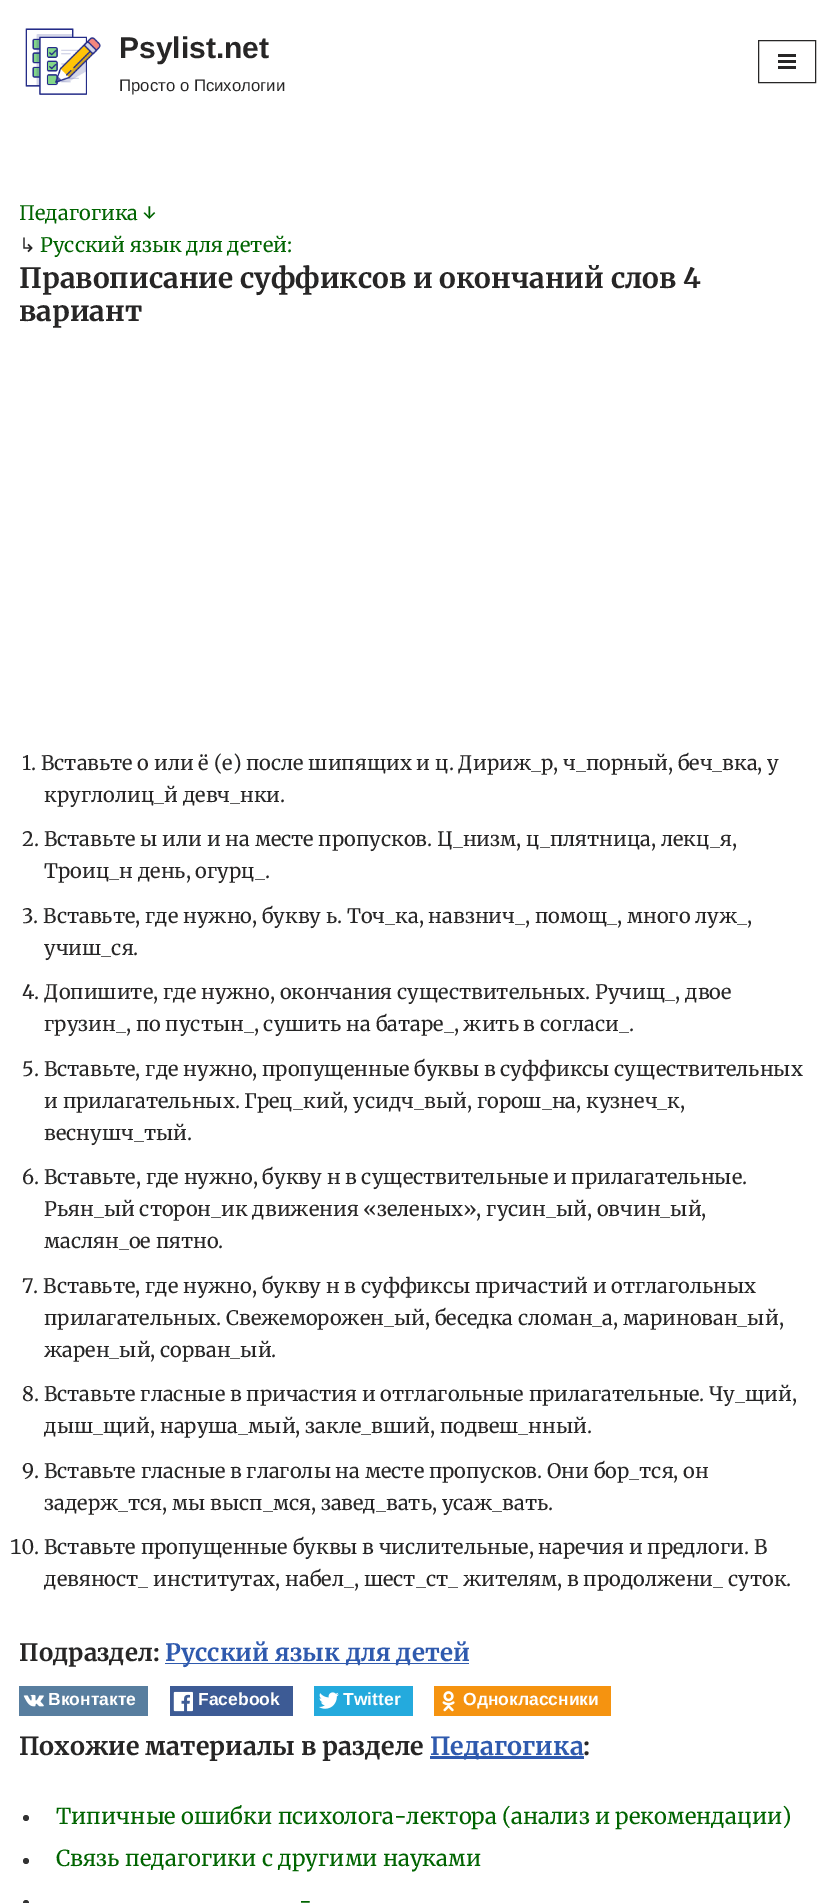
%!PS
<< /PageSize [835 1903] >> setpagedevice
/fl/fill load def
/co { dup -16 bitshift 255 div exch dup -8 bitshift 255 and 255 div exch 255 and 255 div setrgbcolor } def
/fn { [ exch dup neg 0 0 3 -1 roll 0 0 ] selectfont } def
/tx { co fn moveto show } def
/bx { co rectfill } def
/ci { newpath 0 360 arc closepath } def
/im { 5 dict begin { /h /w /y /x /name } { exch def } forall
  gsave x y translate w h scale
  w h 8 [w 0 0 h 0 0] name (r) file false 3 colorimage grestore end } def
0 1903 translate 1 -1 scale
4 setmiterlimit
0 0 835 1903 16#FFFFFF bx
(media/1.raw) 25 28 76 67 im
16#272626 co
758.5 40.5 57 42 rectstroke
778 54 18 3 16#272626 bx
778 60 18 3 16#272626 bx
778 66 18 3 16#272626 bx
165 1663 304 1 16#2F5AAE bx
19 1686 129 30 16#587E9F bx
(media/2.raw) 23 1694 21 13 im
170 1686 123 30 16#3D5B95 bx
(media/3.raw) 173 1691 20 21 im
314 1686 99 30 16#24AADD bx
(media/4.raw) 319 1692 20 17 im
434 1686 177 30 16#F59310 bx
(media/5.raw) 442 1691 13 21 im
430 1756 154 3 16#2F5AAE bx
16#333333 co
26 1818 3 ci fl
26 1861 3 ci fl
26 1903 3 ci fl
(Psylist.net) 119 58 /LiberationSans-Bold 30 16#272626 tx
(Просто о Психологии) 119 91 /LiberationSans-Regular 16.75 16#272626 tx
(Педагогика ↓) 19 220 /Merriweather-Regular 20 16#006400 tx
(↳) 19 252 /DejaVuSans-Regular 20 16#272626 tx
(Русский язык для детей:) 40 252 /Merriweather-Regular 20 16#006400 tx
(Правописание суффиксов и окончаний слов 4) 19 288 /Merriweather-Bold 28 16#272626 tx
(вариант) 19 321 /Merriweather-Bold 28 16#272626 tx
(1. Вставьте о или ё \(е\) после шипящих и ц. Дириж_р, ч_порный, беч_вка, у) 22 770 /Merriweather-Regular 20 16#272626 tx
(круглолиц_й девч_нки.) 44 802 /Merriweather-Regular 20 16#272626 tx
(2. Вставьте ы или и на месте пропусков. Ц_низм, ц_плятница, лекц_я,) 22 846 /Merriweather-Regular 20 16#272626 tx
(Троиц_н день, огурц_.) 44 878 /Merriweather-Regular 20 16#272626 tx
(3. Вставьте, где нужно, букву ь. Точ_ка, навзнич_, помощ_, много луж_,) 22 923 /Merriweather-Regular 20 16#272626 tx
(учиш_ся.) 44 955 /Merriweather-Regular 20 16#272626 tx
(4. Допишите, где нужно, окончания существительных. Ручищ_, двое) 22 999 /Merriweather-Regular 20 16#272626 tx
(грузин_, по пустын_, сушить на батаре_, жить в согласи_.) 44 1031 /Merriweather-Regular 20 16#272626 tx
(5. Вставьте, где нужно, пропущенные буквы в суффиксы существительных) 22 1076 /Merriweather-Regular 20 16#272626 tx
(и прилагательных. Грец_кий, усидч_вый, горош_на, кузнеч_к,) 44 1108 /Merriweather-Regular 20 16#272626 tx
(веснушч_тый.) 44 1140 /Merriweather-Regular 20 16#272626 tx
(6. Вставьте, где нужно, букву н в существительные и прилагательные.) 22 1184 /Merriweather-Regular 20 16#272626 tx
(Рьян_ый сторон_ик движения «зеленых», гусин_ый, овчин_ый,) 44 1216 /Merriweather-Regular 20 16#272626 tx
(маслян_ое пятно.) 44 1248 /Merriweather-Regular 20 16#272626 tx
(7. Вставьте, где нужно, букву н в суффиксы причастий и отглагольных) 22 1293 /Merriweather-Regular 20 16#272626 tx
(прилагательных. Свежеморожен_ый, беседка сломан_а, маринован_ый,) 44 1325 /Merriweather-Regular 20 16#272626 tx
(жарен_ый, сорван_ый.) 44 1357 /Merriweather-Regular 20 16#272626 tx
(8. Вставьте гласные в причастия и отглагольные прилагательные. Чу_щий,) 22 1401 /Merriweather-Regular 20 16#272626 tx
(дыш_щий, наруша_мый, закле_вший, подвеш_нный.) 44 1433 /Merriweather-Regular 20 16#272626 tx
(9. Вставьте гласные в глаголы на месте пропусков. Они бор_тся, он) 22 1478 /Merriweather-Regular 20 16#272626 tx
(задерж_тся, мы высп_мся, завед_вать, усаж_вать.) 44 1510 /Merriweather-Regular 20 16#272626 tx
(10.) 10 1554 /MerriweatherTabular-Regular 20 16#272626 tx
(Вставьте пропущенные буквы в числительные, наречия и предлоги. В) 44 1554 /Merriweather-Regular 20 16#272626 tx
(девяност_ институтах, набел_, шест_ст_ жителям, в продолжени_ суток.) 44 1586 /Merriweather-Regular 20 16#272626 tx
(Подраздел:) 19 1661 /Merriweather-Bold 24 16#272626 tx
(Русский язык для детей) 165 1661 /Merriweather-Bold 24 16#2F5AAE tx
(Вконтакте) 48 1705 /LiberationSans-Bold 17.5 16#FFFFFF tx
(Facebook) 198 1705 /LiberationSans-Bold 17.5 16#FFFFFF tx
(Twitter) 343 1705 /LiberationSans-Bold 17.5 16#FFFFFF tx
(Одноклассники) 463 1705 /LiberationSans-Bold 17.5 16#FFFFFF tx
(Похожие материалы в разделе) 19 1755 /Merriweather-Bold 25 16#272626 tx
(Педагогика) 430 1755 /Merriweather-Bold 25 16#2F5AAE tx
(:) 583 1755 /Merriweather-Bold 25 16#272626 tx
(Типичные ошибки психолога-лектора \(анализ и рекомендации\)) 56 1824 /Merriweather-Regular 22 16#006400 tx
(Связь педагогики с другими науками) 56 1866 /Merriweather-Regular 22 16#006400 tx
(-) 299 1909 /Merriweather-Regular 22 16#006400 tx
showpage
